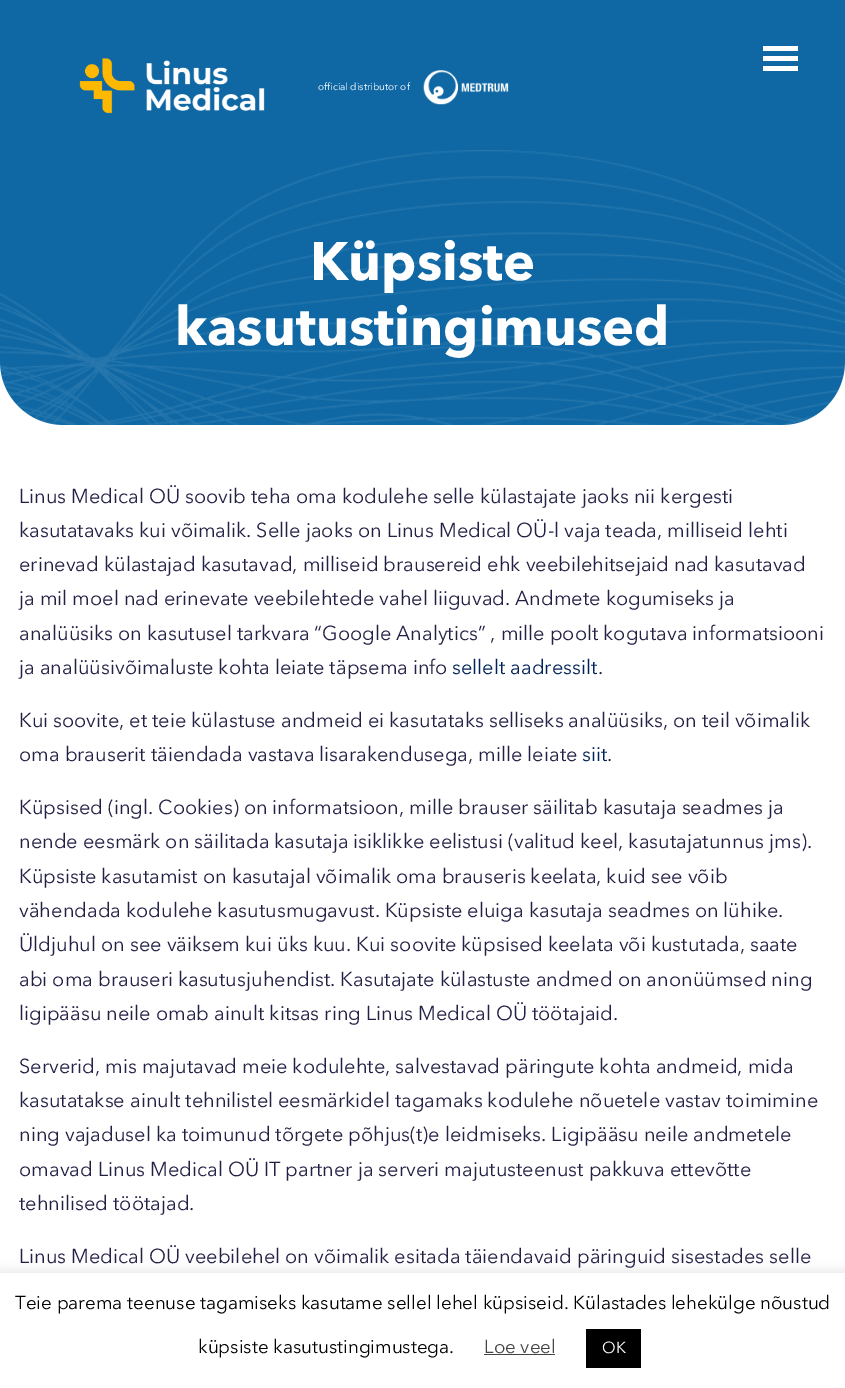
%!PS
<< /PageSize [845 1388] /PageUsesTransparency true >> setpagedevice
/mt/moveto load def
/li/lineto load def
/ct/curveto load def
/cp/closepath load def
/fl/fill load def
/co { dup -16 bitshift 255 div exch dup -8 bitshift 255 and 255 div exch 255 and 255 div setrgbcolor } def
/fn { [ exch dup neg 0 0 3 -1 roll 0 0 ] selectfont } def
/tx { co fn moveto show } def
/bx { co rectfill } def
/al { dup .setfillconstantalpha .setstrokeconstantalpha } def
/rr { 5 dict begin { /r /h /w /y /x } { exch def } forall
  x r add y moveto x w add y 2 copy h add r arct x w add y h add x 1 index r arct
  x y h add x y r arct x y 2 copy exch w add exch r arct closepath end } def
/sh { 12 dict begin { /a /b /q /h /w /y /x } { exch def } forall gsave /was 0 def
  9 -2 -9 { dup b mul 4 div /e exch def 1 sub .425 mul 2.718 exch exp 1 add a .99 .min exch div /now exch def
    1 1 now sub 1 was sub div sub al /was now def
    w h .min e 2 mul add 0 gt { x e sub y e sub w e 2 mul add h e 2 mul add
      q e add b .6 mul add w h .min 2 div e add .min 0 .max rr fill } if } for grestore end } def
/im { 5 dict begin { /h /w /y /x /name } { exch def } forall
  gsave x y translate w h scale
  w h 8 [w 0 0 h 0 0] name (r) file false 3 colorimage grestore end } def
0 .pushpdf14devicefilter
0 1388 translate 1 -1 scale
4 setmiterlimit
0 0 845 1388 16#FFFFFF bx
16#0F68A4 co
0 0 mt 845 0 li 845 362 li 845 397 817 425 782 425 ct 63 425 li 28 425 0 397 0 362 ct cp fl
763 56 35 5 16#FFFFFF bx
763 46 35 5 16#FFFFFF bx
763 66 35 5 16#FFFFFF bx
(media/1.raw) 0 150 845 275 im
(media/2.raw) 79 58 186 56 im
(media/3.raw) 423 70 86 35 im
16#ACABAB co
0 1271 845 117 0 6 .3 sh
0 1273 845 115 16#FFFFFF bx
484 1354 71 1 16#444444 bx
586 1329 55 39 16#000000 bx
(official distributor of) 318 90 /AvenirNext-Regular 10 16#FFFFFF tx
(Küpsiste) 310 280 /AvenirNext-Bold 53.75 16#FFFFFF tx
(kasutustingimused) 175 345 /AvenirNext-Bold 53.75 16#FFFFFF tx
(Linus Medical OÜ soovib teha oma kodulehe selle külastajate jaoks nii kergesti) 19 503 /AvenirNext-Regular 20 16#232045 tx
(kasutatavaks kui võimalik. Selle jaoks on Linus Medical OÜ-l vaja teada, milliseid lehti) 19 537 /AvenirNext-Regular 20 16#232045 tx
(erinevad külastajad kasutavad, milliseid brausereid ehk veebilehitsejaid nad kasutavad) 19 571 /AvenirNext-Regular 20 16#232045 tx
(ja mil moel nad erinevate veebilehtede vahel liiguvad. Andmete kogumiseks ja) 19 605 /AvenirNext-Regular 20 16#232045 tx
(analüüsiks on kasutusel tarkvara “Google Analytics” , mille poolt kogutava informatsiooni) 19 640 /AvenirNext-Regular 20 16#232045 tx
(ja analüüsivõimaluste kohta leiate täpsema info) 19 674 /AvenirNext-Regular 20 16#232045 tx
(sellelt aadressilt) 452 674 /AvenirNext-Regular 20 16#01235A tx
(.) 598 674 /AvenirNext-Regular 20 16#232045 tx
(Kui soovite, et teie külastuse andmeid ei kasutataks selliseks analüüsiks, on teil võimalik) 19 727 /AvenirNext-Regular 20 16#232045 tx
(oma brauserit täiendada vastava lisarakendusega, mille leiate) 19 761 /AvenirNext-Regular 20 16#232045 tx
(siit) 582 761 /AvenirNext-Regular 20 16#01235A tx
(.) 607 761 /AvenirNext-Regular 20 16#232045 tx
(Küpsised \(ingl. Cookies\) on informatsioon, mille brauser säilitab kasutaja seadmes ja) 19 814 /AvenirNext-Regular 20 16#232045 tx
(nende eesmärk on säilitada kasutaja isiklikke eelistusi \(valitud keel, kasutajatunnus jms\).) 19 848 /AvenirNext-Regular 20 16#232045 tx
(Küpsiste kasutamist on kasutajal võimalik oma brauseris keelata, kuid see võib) 19 883 /AvenirNext-Regular 20 16#232045 tx
(vähendada kodulehe kasutusmugavust. Küpsiste eluiga kasutaja seadmes on lühike.) 19 917 /AvenirNext-Regular 20 16#232045 tx
(Üldjuhul on see väiksem kui üks kuu. Kui soovite küpsised keelata või kustutada, saate) 19 951 /AvenirNext-Regular 20 16#232045 tx
(abi oma brauseri kasutusjuhendist. Kasutajate külastuste andmed on anonüümsed ning) 19 986 /AvenirNext-Regular 20 16#232045 tx
(ligipääsu neile omab ainult kitsas ring Linus Medical OÜ töötajaid.) 19 1020 /AvenirNext-Regular 20 16#232045 tx
(Serverid, mis majutavad meie kodulehte, salvestavad päringute kohta andmeid, mida) 19 1073 /AvenirNext-Regular 20 16#232045 tx
(kasutatakse ainult tehnilistel eesmärkidel tagamaks kodulehe nõuetele vastav toimimine) 19 1107 /AvenirNext-Regular 20 16#232045 tx
(ning vajadusel ka toimunud tõrgete põhjus\(t\)e leidmiseks. Ligipääsu neile andmetele) 19 1141 /AvenirNext-Regular 20 16#232045 tx
(omavad Linus Medical OÜ IT partner ja serveri majutusteenust pakkuva ettevõtte) 19 1176 /AvenirNext-Regular 20 16#232045 tx
(tehnilised töötajad.) 19 1210 /AvenirNext-Regular 20 16#232045 tx
(Linus Medical OÜ veebilehel on võimalik esitada täiendavaid päringuid sisestades selle) 19 1263 /AvenirNext-Regular 20 16#232045 tx
(Teie parema teenuse tagamiseks kasutame sellel lehel küpsiseid. Külastades lehekülge nõustud) 15 1309 /AvenirNext-Regular 18.75 16#000000 tx
(küpsiste kasutustingimustega.) 198 1353 /AvenirNext-Regular 18.75 16#000000 tx
(Loe veel) 484 1353 /AvenirNext-Regular 18.75 16#444444 tx
(OK) 602 1353 /AvenirNext-Regular 16 16#FFFFFF tx
.poppdf14devicefilter showpage
